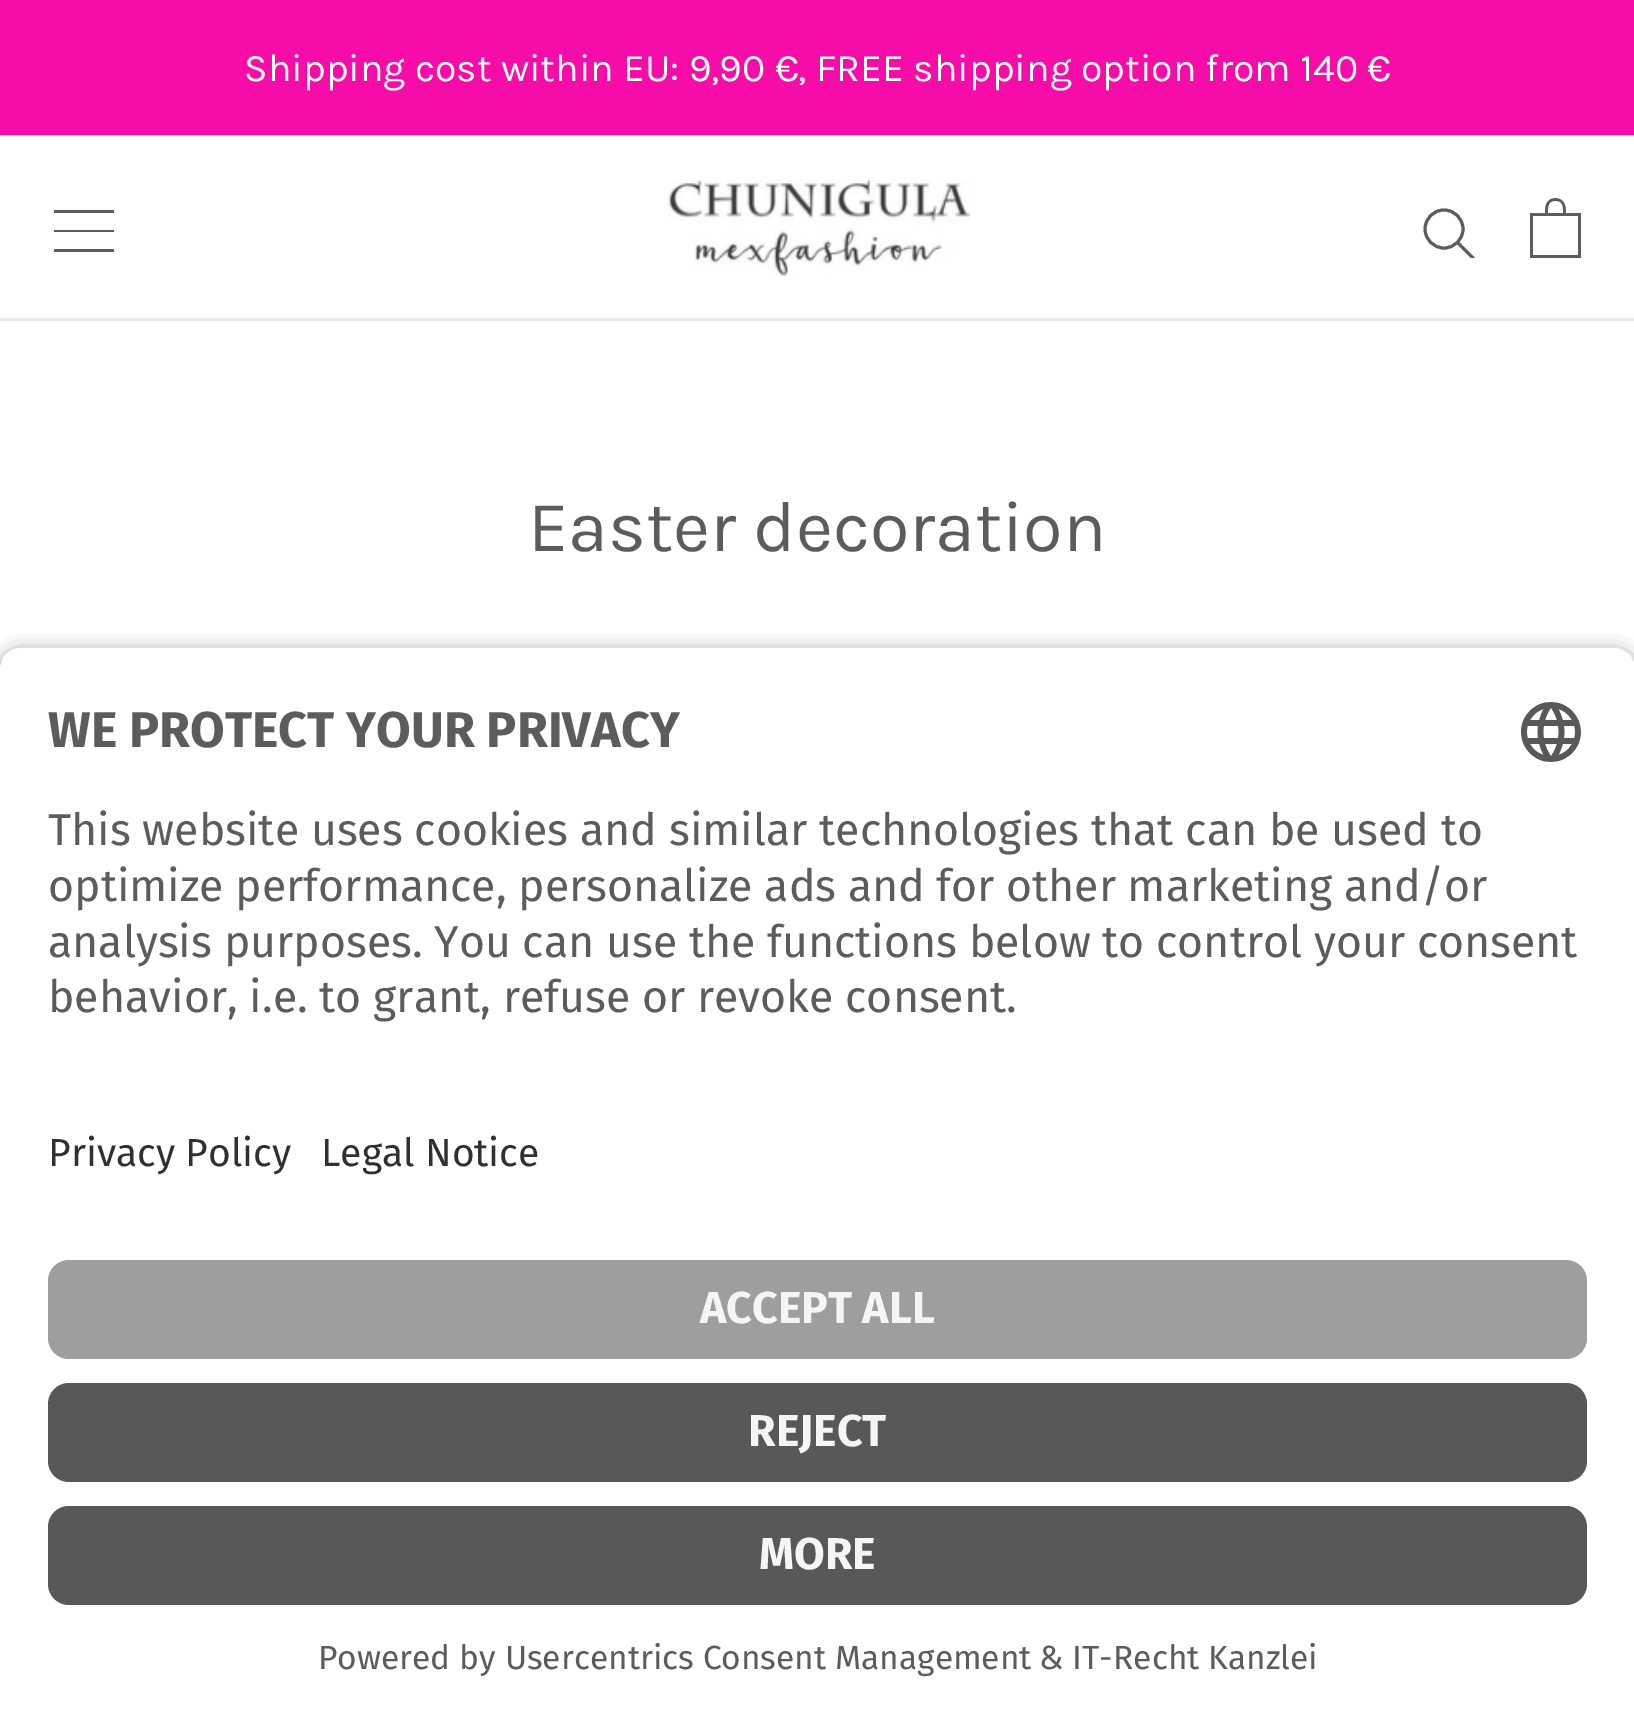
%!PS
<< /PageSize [1634 1726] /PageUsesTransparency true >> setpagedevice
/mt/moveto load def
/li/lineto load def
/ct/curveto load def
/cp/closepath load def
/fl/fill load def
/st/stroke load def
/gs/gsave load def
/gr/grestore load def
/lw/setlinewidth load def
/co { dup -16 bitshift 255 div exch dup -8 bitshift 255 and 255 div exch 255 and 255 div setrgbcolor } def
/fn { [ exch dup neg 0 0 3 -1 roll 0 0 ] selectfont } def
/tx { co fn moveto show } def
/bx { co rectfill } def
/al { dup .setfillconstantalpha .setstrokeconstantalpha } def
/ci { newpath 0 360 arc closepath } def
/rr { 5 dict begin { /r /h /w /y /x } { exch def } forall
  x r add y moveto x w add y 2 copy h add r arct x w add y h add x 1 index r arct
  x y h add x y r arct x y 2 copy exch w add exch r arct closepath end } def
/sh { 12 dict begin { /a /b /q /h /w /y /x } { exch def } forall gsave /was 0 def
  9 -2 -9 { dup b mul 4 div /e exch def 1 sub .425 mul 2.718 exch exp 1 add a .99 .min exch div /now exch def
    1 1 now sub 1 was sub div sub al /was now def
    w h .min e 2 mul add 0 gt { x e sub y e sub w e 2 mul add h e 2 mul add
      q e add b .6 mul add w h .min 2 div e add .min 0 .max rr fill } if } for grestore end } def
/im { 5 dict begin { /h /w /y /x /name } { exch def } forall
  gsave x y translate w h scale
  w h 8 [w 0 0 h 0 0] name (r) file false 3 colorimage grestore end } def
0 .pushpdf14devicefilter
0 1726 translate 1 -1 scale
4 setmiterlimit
0 0 1634 1726 16#FFFFFF bx
0 0 1634 135 16#F50CA9 bx
0 318 1634 3 16#E7E7E7 bx
16#5C5C5C co
54 252 mt 54 249 li 114 249 li 114 252 li cp 54 230 mt 114 230 li 114 232 li 54 232 li cp 54 210 mt 114 210 li 114 213 li 54 213 li cp fl
(media/1.raw) 668 180 303 96 im
gs
1422 207 54 51 rectclip
3 lw
2 setlinecap
1473 258 mt 1458 243 li st
gr
3 lw
1444 229 19 ci st
(media/2.raw) 1530 198 51 60 im
16#000000 co
0 657 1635 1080 21 10.5 .8 sh
16#FFFFFF co
21 648 mt 1614 648 li 1625.5 648 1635 657.5 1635 669 ct 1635 1086 li 0 1086 li 0 669 li 0 657.5 9.5 648 21 648 ct cp fl
(media/3.raw) 1521 702 60 60 im
0 1086 1634 640 16#FFFFFF bx
16#9E9E9E co
48 1260 1539 99 21 rr fl
16#585858 co
48 1383 1539 99 21 rr fl
48 1506 1539 99 21 rr fl
(Shipping cost within EU: 9,90 €, FREE shipping option from 140 €) 244 81 /Karla-Regular 39 16#FFFFFF tx
(Easter decoration) 528 551 /Karla-Regular 72 16#5C5C5C tx
(WE PROTECT YOUR PRIVACY) 48 747 /FiraSans-Bold 50.25 16#5C5C5C tx
/FiraSans-Regular 44.6 fn
48 845 mt -.1 0 32 (This website uses cookies and similar technologies that can be used to) widthshow
48 901 mt -.25 0 32 (optimize performance, personalize ads and for other marketing and/or) widthshow
48 957 mt -.1 0 32 (analysis purposes. You can use the functions below to control your consent) widthshow
48 1012 mt -.1 0 32 (behavior, i.e. to grant, refuse or revoke consent.) widthshow
(Privacy Policy) 48 1166 /FiraSans-Regular 39 16#303030 tx
(Legal Notice) 321 1166 /FiraSans-Regular 39 16#303030 tx
(ACCEPT ALL) 700 1323 /FiraSans-Bold 44.6 16#F5F5F5 tx
(REJECT) 748 1446 /FiraSans-Bold 44.6 16#F5F5F5 tx
(MORE) 759 1569 /FiraSans-Bold 44.6 16#F5F5F5 tx
(Powered by Usercentrics Consent Management) 318 1669 /FiraSans-Regular 33.5 16#5C5C5C tx
(& IT-Recht Kanzlei) 1039 1669 /FiraSans-Regular 33.5 16#5C5C5C tx
.poppdf14devicefilter showpage
